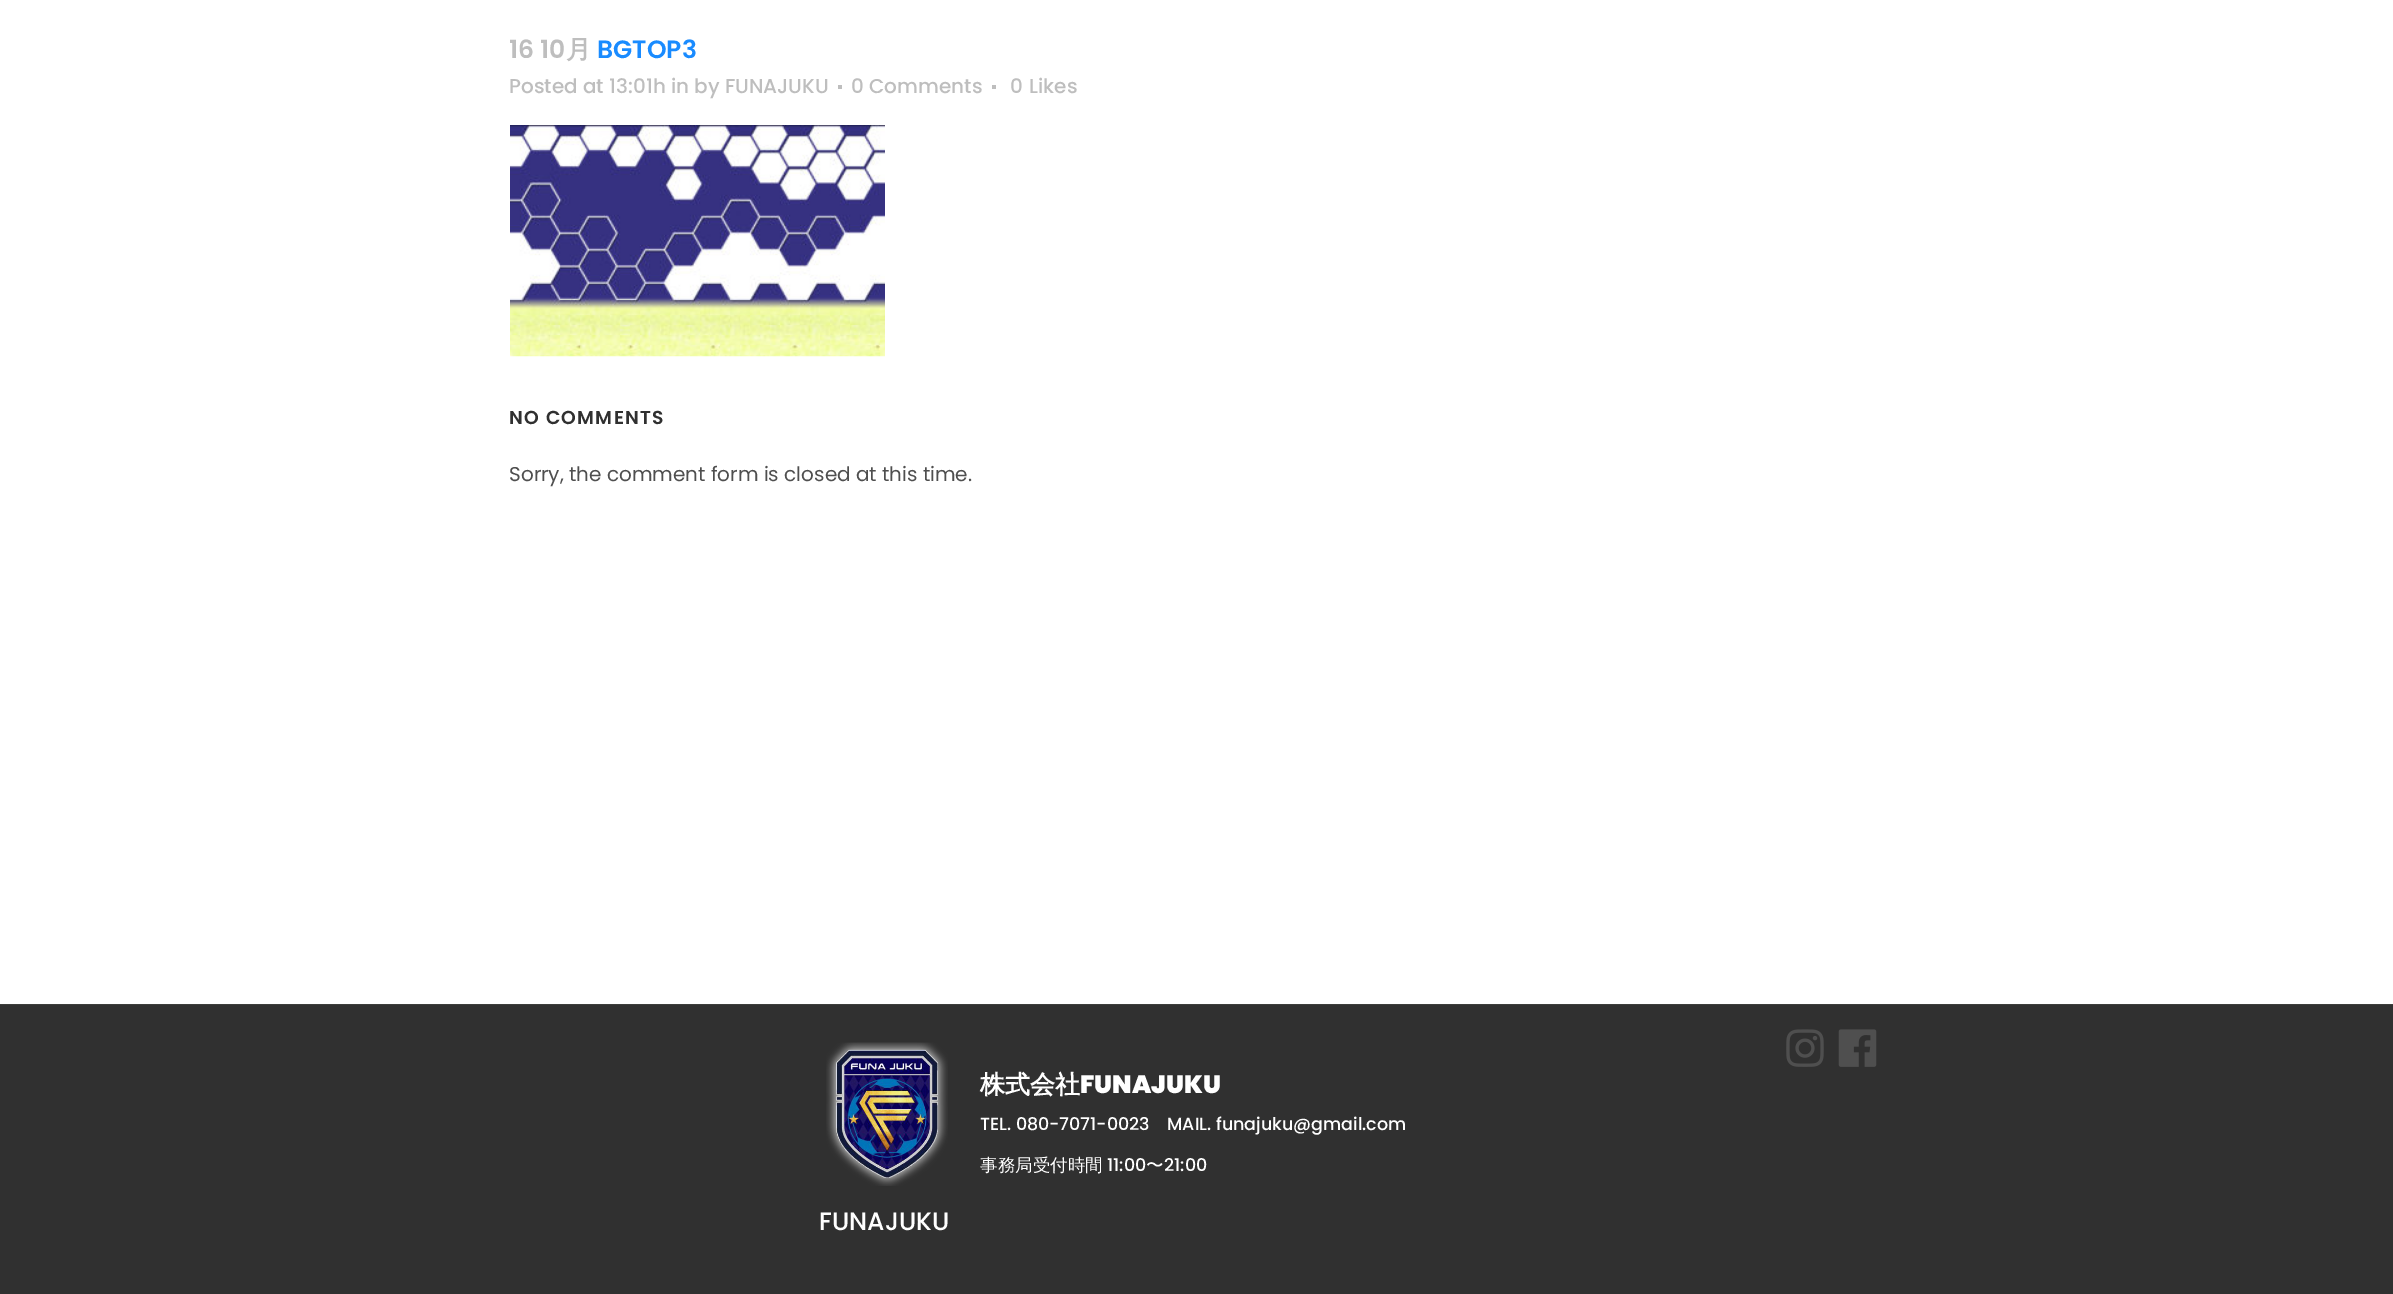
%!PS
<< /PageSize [2393 1294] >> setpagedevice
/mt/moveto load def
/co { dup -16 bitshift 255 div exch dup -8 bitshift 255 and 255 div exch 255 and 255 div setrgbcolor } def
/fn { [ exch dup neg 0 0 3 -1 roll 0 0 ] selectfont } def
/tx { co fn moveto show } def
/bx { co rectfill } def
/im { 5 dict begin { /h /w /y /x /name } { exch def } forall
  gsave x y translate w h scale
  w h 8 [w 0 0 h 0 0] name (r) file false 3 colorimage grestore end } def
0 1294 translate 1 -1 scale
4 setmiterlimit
0 0 2393 1294 16#FFFFFF bx
838 85 4 4 16#BEBEBE bx
992 85 4 4 16#BEBEBE bx
(media/1.raw) 510 125 375 232 im
0 1005 2393 289 16#303030 bx
0 1004 2393 1 16#3D3E3C bx
(media/2.raw) 1786 1029 38 38 im
(media/3.raw) 1838 1029 39 38 im
(media/4.raw) 826 1042 122 144 im
(16 10) 509 58 /Poppins-SemiBold 25 16#BEBEBE tx
(月) 566 58 /WenQuanYiZenHei-Bold 25 16#BEBEBE tx
(BGTOP3) 597 58 /Poppins-SemiBold 25 16#198BFF tx
(Posted at 13:01h in by FUNAJUKU) 509 93 /Poppins-Medium 20 16#BEBEBE tx
(0 Comments) 851 93 /Poppins-Medium 20 16#BEBEBE tx
(0) 1010 93 /Poppins-Medium 20 16#BEBEBE tx
(Likes) 1029 93 /Poppins-Medium 20 16#BEBEBE tx
/Poppins-SemiBold 18.75 fn
16#303030 co
509 424 mt 1.25 0 (NO COMMENTS) ashow
(Sorry, the comment form is closed at this time.) 509 481 /Poppins-Regular 20 16#4F4F4F tx
(株式会社) 980 1093 /WenQuanYiZenHei-Bold 25 16#FFFFFF tx
(FUNAJUKU) 1080 1093 /Poppins-Black 25 16#FFFFFF tx
(TEL. 080-7071-0023) 980 1130 /Poppins-Medium 17.5 16#FFFFFF tx
(MAIL. funajuku@gmail.com) 1167 1130 /Poppins-Medium 17.5 16#FFFFFF tx
(事務局受付時間) 980 1171 /WenQuanYiZenHei-Medium 17.5 16#FFFFFF tx
(11:00) 1107 1171 /Poppins-Medium 17.5 16#FFFFFF tx
(〜) 1146 1171 /WenQuanYiZenHei-Medium 17.5 16#FFFFFF tx
(21:00) 1164 1171 /Poppins-Medium 17.5 16#FFFFFF tx
(FUNAJUKU) 819 1230 /Poppins-Medium 25 16#FFFFFF tx
showpage
